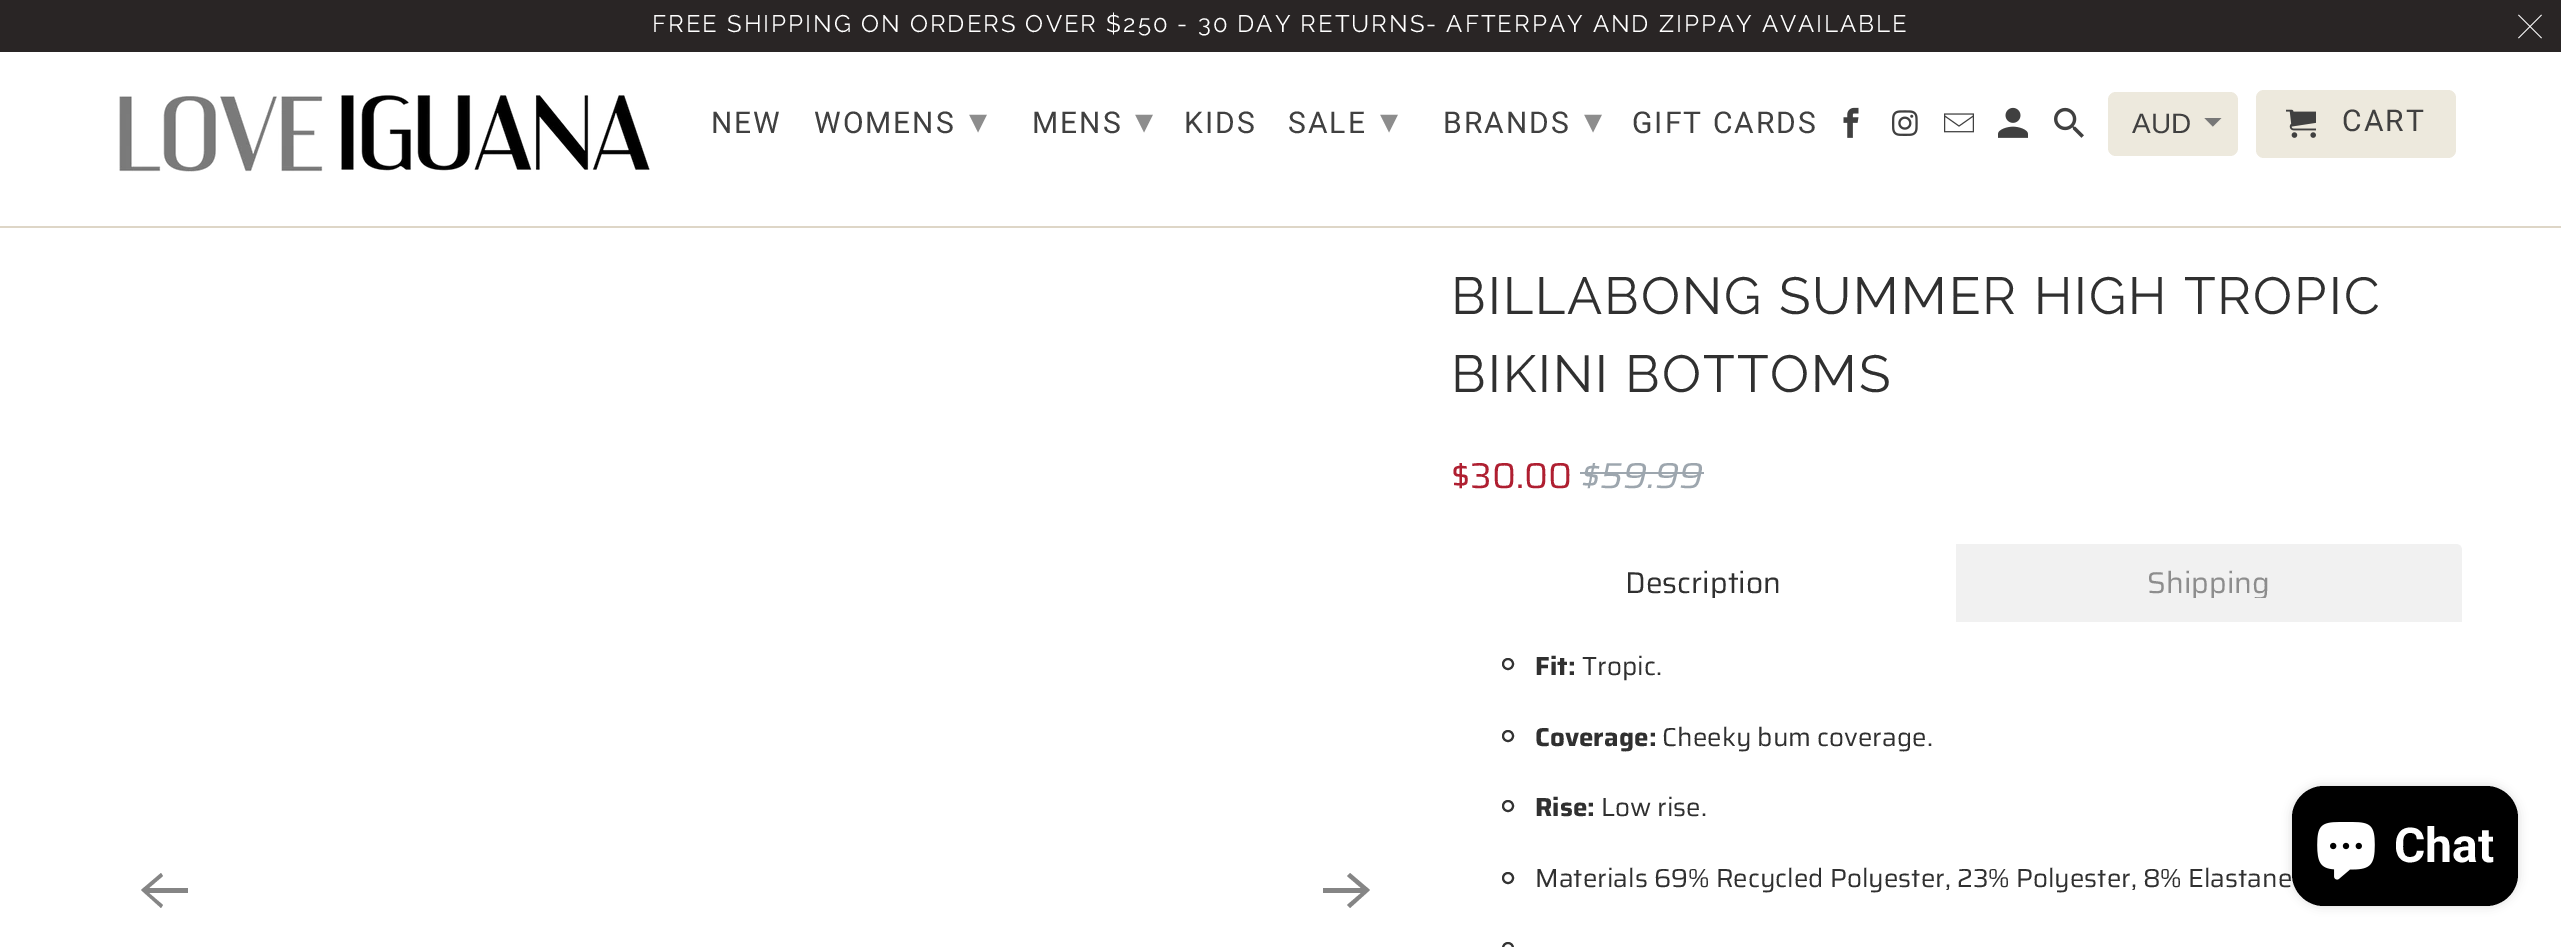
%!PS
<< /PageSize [2561 947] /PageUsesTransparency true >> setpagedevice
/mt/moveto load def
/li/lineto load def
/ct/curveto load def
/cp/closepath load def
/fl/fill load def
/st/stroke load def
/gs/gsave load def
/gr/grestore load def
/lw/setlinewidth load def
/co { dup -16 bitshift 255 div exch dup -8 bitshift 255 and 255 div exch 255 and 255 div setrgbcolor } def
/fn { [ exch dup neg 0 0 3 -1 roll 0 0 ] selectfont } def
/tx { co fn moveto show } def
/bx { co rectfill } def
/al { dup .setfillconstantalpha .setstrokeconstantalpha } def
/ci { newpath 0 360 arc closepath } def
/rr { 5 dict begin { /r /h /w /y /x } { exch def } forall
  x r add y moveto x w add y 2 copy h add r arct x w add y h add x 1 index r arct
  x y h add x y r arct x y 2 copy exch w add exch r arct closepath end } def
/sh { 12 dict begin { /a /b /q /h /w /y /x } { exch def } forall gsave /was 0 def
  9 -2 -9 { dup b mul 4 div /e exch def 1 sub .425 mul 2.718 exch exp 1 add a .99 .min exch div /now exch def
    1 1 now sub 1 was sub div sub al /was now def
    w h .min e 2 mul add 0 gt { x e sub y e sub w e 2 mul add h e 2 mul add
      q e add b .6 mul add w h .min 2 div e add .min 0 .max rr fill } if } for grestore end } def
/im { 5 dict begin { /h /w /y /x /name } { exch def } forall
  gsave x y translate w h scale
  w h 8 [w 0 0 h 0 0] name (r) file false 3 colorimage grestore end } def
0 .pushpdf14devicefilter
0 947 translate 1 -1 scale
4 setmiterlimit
0 0 2561 947 16#FFFFFF bx
0 226 2561 2 16#DED6C7 bx
0 0 2561 52 16#292525 bx
(media/1.raw) 2518 14 24 25 im
(media/2.raw) 119 95 531 77 im
(media/3.raw) 1843 107 16 31 im
(media/4.raw) 1892 110 26 26 im
(media/5.raw) 1944 113 30 20 im
(media/6.raw) 1998 107 30 31 im
(media/7.raw) 2054 107 30 31 im
16#EDE9DD co
2108 92 130 64 8 rr fl
(media/8.raw) 2204 118 18 9 im
2256 90 200 68 8 rr fl
(media/9.raw) 2286 109 30 29 im
16#858585 co
188 888 mt 149 888 li 163 876 li 161 873 li 141 890 li 161 908 li 163 905 li 149 893 li 188 893 li cp fl
1323 893 mt 1361 893 li 1347 905 li 1350 908 li 1370 890 li 1350 873 li 1347 876 li 1361 888 li 1323 888 li cp fl
1580 472 124 2 16#9DA6AE bx
16#F1F1F1 co
1956 544 mt 2456 544 li 2459.5 544 2462 546.5 2462 550 ct 2462 622 li 1956 622 li cp fl
16#333333 co
2 lw
1508 664 5 ci st
1508 736 5 ci st
1508 806 5 ci st
1508 878 5 ci st
1508 948 5 ci st
16#000000 co
2292 786 226 120 32 5 .15 sh
2292 786 226 120 32 rr fl
(media/10.raw) 2317 822 58 58 im
/Raleway-Regular 24 fn
16#FFFFFF co
652 32 mt 2 0 (FREE SHIPPING ON ORDERS OVER $250 - 30 DAY RETURNS- AFTERPAY AND ZIPPAY AVAILABLE) ashow
/Roboto-Regular 30 fn
16#404040 co
711 133 mt 2 0 (NEW) ashow
814 133 mt 2 0 (WOMENS) ashow
/DejaVuSans-Regular 36 fn
16#8D8D8D co
969 133 mt 2 0 (▾) ashow
/Roboto-Regular 30 fn
16#404040 co
1032 133 mt 2 0 (MENS) ashow
/DejaVuSans-Regular 36 fn
16#8D8D8D co
1135 133 mt 2 0 (▾) ashow
/Roboto-Regular 30 fn
16#404040 co
1184 133 mt 2 0 (KIDS) ashow
1288 133 mt 2 0 (SALE) ashow
/DejaVuSans-Regular 36 fn
16#8D8D8D co
1380 133 mt 2 0 (▾) ashow
/Roboto-Regular 30 fn
16#404040 co
1443 133 mt 2 0 (BRANDS) ashow
/DejaVuSans-Regular 36 fn
16#8D8D8D co
1584 133 mt 2 0 (▾) ashow
/Roboto-Regular 30 fn
16#404040 co
1632 133 mt 2 0 (GIFT CARDS) ashow
(AUD) 2132 133 /LiberationSans-Regular 28 16#404040 tx
/Roboto-Regular 30 fn
2342 131 mt 2 0 (CART) ashow
/Raleway-Regular 52 fn
16#303030 co
1451 314 mt 2 0 (BILLABONG SUMMER HIGH TROPIC) ashow
1451 392 mt 2 0 (BIKINI BOTTOMS) ashow
($30.00) 1451 488 /Saira-Regular 36 16#AF1F31 tx
($59.99) 1581 488 /Saira-Italic 36 16#9DA6AE tx
gs
1476 568 456 30 rectclip
(Description) 1625 593 /Saira-Regular 30 16#303030 tx
gr
gs
1980 568 458 30 rectclip
(Shipping) 2147 593 /Saira-Regular 30 16#8D8D8D tx
gr
(Fit:) 1535 675 /Saira-Bold 26 16#303030 tx
(Tropic.) 1582 675 /Saira-Regular 26 16#303030 tx
(Coverage:) 1535 746 /Saira-Bold 26 16#303030 tx
(Cheeky bum coverage.) 1662 746 /Saira-Regular 26 16#303030 tx
(Rise:) 1535 816 /Saira-Bold 26 16#303030 tx
(Low rise.) 1601 816 /Saira-Regular 26 16#303030 tx
(Materials 69% Recycled Polyester, 23% Polyester, 8% Elastane) 1535 887 /Saira-Regular 26 16#303030 tx
(Chat) 2394 862 /Roboto-Bold 48 16#FFFFFF tx
.poppdf14devicefilter showpage
